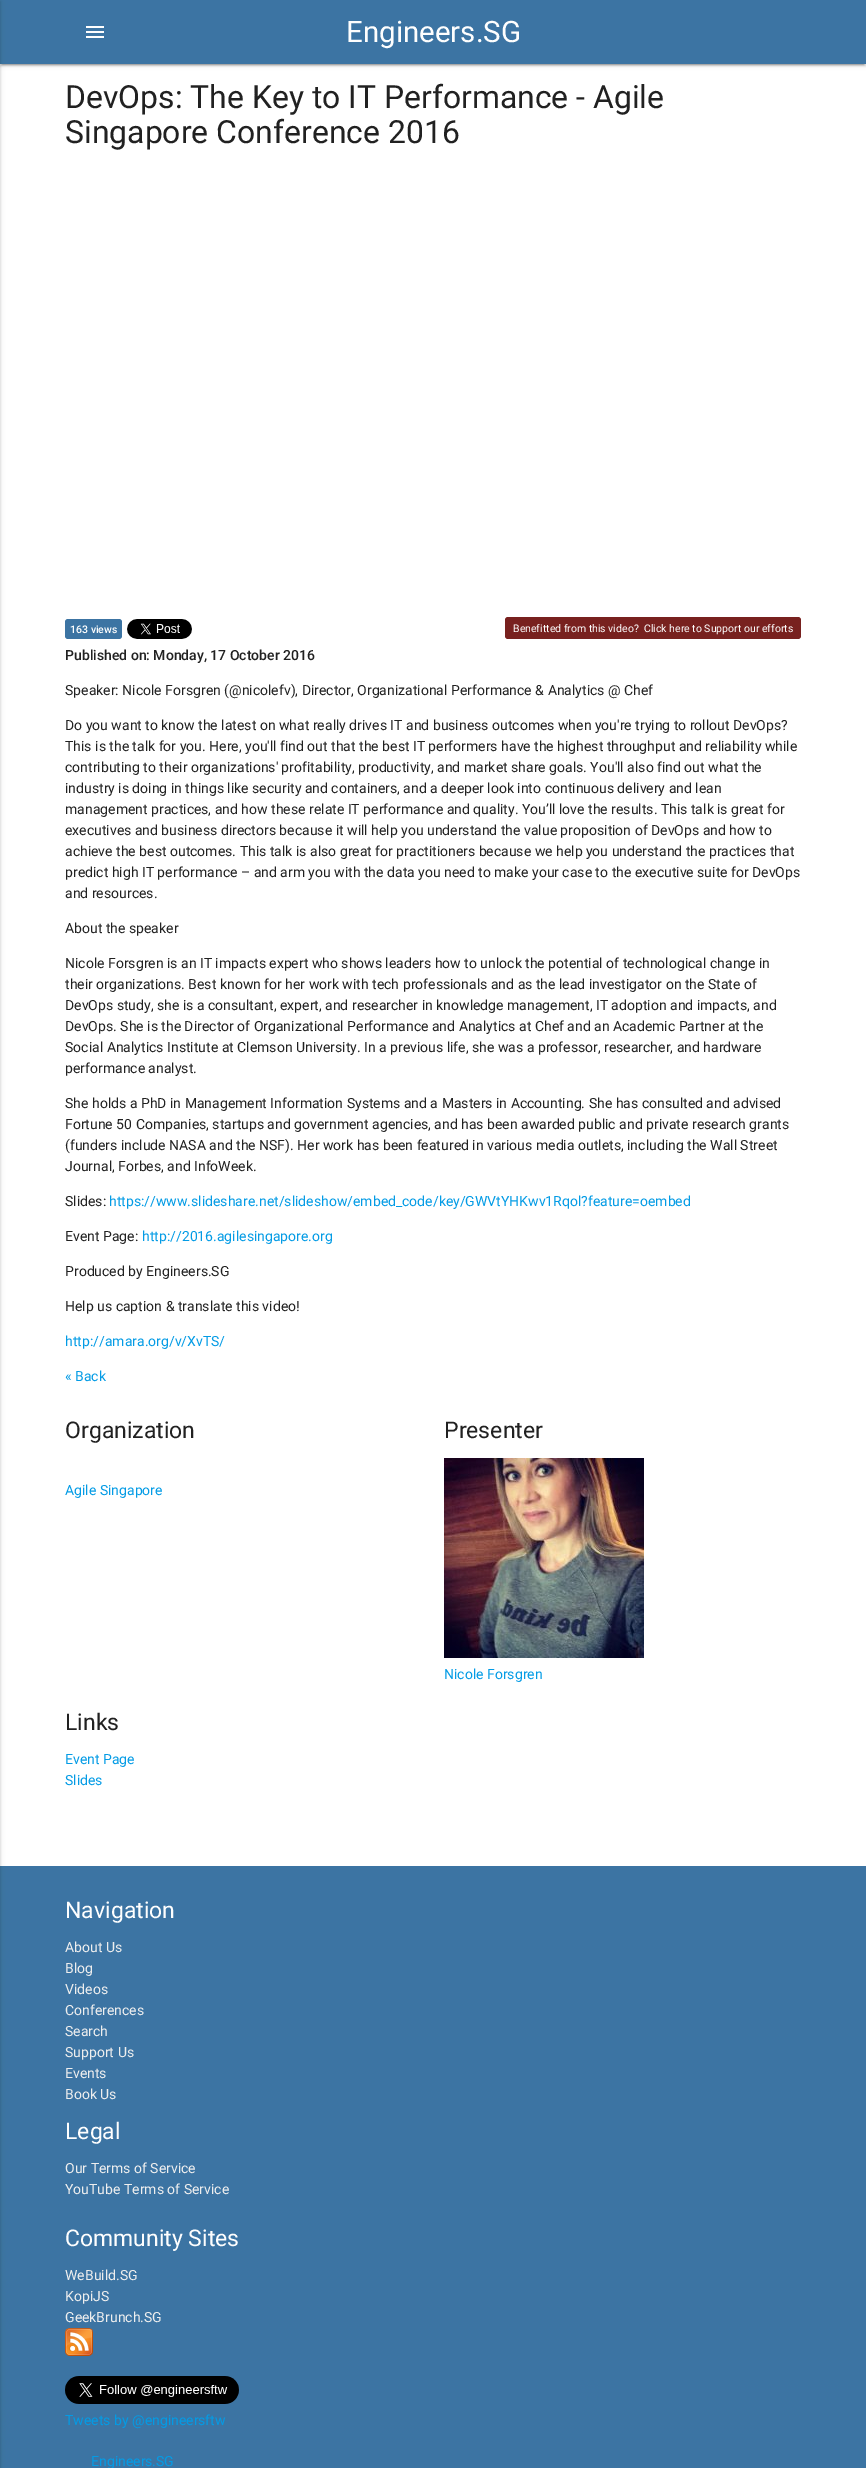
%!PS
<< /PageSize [866 2468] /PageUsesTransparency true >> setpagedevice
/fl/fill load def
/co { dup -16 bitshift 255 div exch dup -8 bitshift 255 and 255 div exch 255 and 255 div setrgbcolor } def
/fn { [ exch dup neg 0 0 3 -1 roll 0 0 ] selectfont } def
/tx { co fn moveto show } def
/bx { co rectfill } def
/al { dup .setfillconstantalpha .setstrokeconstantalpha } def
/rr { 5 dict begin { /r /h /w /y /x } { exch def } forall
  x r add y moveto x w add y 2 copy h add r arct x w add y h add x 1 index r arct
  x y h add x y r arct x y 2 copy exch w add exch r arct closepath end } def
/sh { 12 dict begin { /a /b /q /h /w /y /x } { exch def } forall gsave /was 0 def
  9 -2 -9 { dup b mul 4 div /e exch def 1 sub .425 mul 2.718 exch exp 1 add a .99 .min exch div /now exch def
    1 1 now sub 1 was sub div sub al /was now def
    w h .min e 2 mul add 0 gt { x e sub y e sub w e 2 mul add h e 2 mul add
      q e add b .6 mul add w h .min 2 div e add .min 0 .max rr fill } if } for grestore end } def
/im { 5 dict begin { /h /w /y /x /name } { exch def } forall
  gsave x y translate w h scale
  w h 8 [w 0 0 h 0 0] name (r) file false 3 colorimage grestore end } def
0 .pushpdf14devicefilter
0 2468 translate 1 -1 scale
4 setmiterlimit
0 0 866 2468 16#FFFFFF bx
16#000000 co
2 5 862 60 0 .5 .2 sh
0 1 866 64 0 2.5 .12 sh
0 2 866 64 0 1 .14 sh
0 0 866 64 16#3C74A3 bx
0 1866 866 602 16#3C74A3 bx
16#000000 co
-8 1 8 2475 0 2.5 .12 sh
-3 2 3 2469 0 1 .14 sh
(media/1.raw) 86 26 18 12 im
16#3C74A3 co
65 619 57 20 3 rr fl
(media/2.raw) 127 619 65 20 im
16#78211F co
505 617 296 22 3 rr fl
(media/3.raw) 444 1458 200 200 im
(media/4.raw) 65 2328 28 28 im
(media/5.raw) 65 2376 174 28 im
(Engineers.SG) 346 42 /Roboto-Regular 29.5 16#FEFEFE tx
(DevOps: The Key to IT Performance - Agile) 65 108 /Roboto-Regular 31.9 16#212121 tx
(Singapore Conference 2016) 65 143 /Roboto-Regular 31.9 16#212121 tx
(163 views) 70 633 /Roboto-Medium 10.5 16#FEFEFE tx
(Benefitted from this video?) 513 632 /Roboto-Regular 10.5 16#FEFEFE tx
(Click here to Support our efforts) 644 632 /Roboto-Regular 10.5 16#FEFEFE tx
(Published on: Monday, 17 October 2016) 65 660 /Roboto-Medium 14 16#212121 tx
(Speaker: Nicole Forsgren \(@nicolefv\), Director, Organizational Performance & Analytics @ Chef) 65 695 /Roboto-Regular 14 16#212121 tx
(Do you want to know the latest on what really drives IT and business outcomes when you're trying to rollout DevOps?) 65 730 /Roboto-Regular 14 16#212121 tx
(This is the talk for you. Here, you'll find out that the best IT performers have the highest throughput and reliability while) 65 751 /Roboto-Regular 14 16#212121 tx
(contributing to their organizations' profitability, productivity, and market share goals. You'll also find out what the) 65 772 /Roboto-Regular 14 16#212121 tx
(industry is doing in things like security and containers, and a deeper look into continuous delivery and lean) 65 793 /Roboto-Regular 14 16#212121 tx
(management practices, and how these relate IT performance and quality. You’ll love the results. This talk is great for) 65 814 /Roboto-Regular 14 16#212121 tx
(executives and business directors because it will help you understand the value proposition of DevOps and how to) 65 835 /Roboto-Regular 14 16#212121 tx
(achieve the best outcomes. This talk is also great for practitioners because we help you understand the practices that) 65 856 /Roboto-Regular 14 16#212121 tx
(predict high IT performance – and arm you with the data you need to make your case to the executive suite for DevOps) 65 877 /Roboto-Regular 14 16#212121 tx
(and resources.) 65 898 /Roboto-Regular 14 16#212121 tx
(About the speaker) 65 933 /Roboto-Regular 14 16#212121 tx
(Nicole Forsgren is an IT impacts expert who shows leaders how to unlock the potential of technological change in) 65 968 /Roboto-Regular 14 16#212121 tx
(their organizations. Best known for her work with tech professionals and as the lead investigator on the State of) 65 989 /Roboto-Regular 14 16#212121 tx
(DevOps study, she is a consultant, expert, and researcher in knowledge management, IT adoption and impacts, and) 65 1010 /Roboto-Regular 14 16#212121 tx
(DevOps. She is the Director of Organizational Performance and Analytics at Chef and an Academic Partner at the) 65 1031 /Roboto-Regular 14 16#212121 tx
(Social Analytics Institute at Clemson University. In a previous life, she was a professor, researcher, and hardware) 65 1052 /Roboto-Regular 14 16#212121 tx
(performance analyst.) 65 1073 /Roboto-Regular 14 16#212121 tx
(She holds a PhD in Management Information Systems and a Masters in Accounting. She has consulted and advised) 65 1108 /Roboto-Regular 14 16#212121 tx
(Fortune 50 Companies, startups and government agencies, and has been awarded public and private research grants) 65 1129 /Roboto-Regular 14 16#212121 tx
(\(funders include NASA and the NSF\). Her work has been featured in various media outlets, including the Wall Street) 65 1150 /Roboto-Regular 14 16#212121 tx
(Journal, Forbes, and InfoWeek.) 65 1171 /Roboto-Regular 14 16#212121 tx
(Slides:) 65 1206 /Roboto-Regular 14 16#212121 tx
(https://www.slideshare.net/slideshow/embed_code/key/GWVtYHKwv1Rqol?feature=oembed) 109 1206 /Roboto-Regular 14 16#039BE5 tx
(Event Page:) 65 1241 /Roboto-Regular 14 16#212121 tx
(http://2016.agilesingapore.org) 142 1241 /Roboto-Regular 14 16#039BE5 tx
(Produced by Engineers.SG) 65 1276 /Roboto-Regular 14 16#212121 tx
(Help us caption & translate this video!) 65 1311 /Roboto-Regular 14 16#212121 tx
(http://amara.org/v/XvTS/) 65 1346 /Roboto-Regular 14 16#039BE5 tx
(« Back) 65 1381 /Roboto-Regular 14 16#039BE5 tx
(Organization) 65 1438 /Roboto-Regular 23 16#212121 tx
(Agile Singapore) 65 1495 /Roboto-Regular 14 16#039BE5 tx
(Presenter) 444 1438 /Roboto-Regular 23 16#212121 tx
(Nicole Forsgren) 444 1679 /Roboto-Regular 14 16#039BE5 tx
(Links) 65 1730 /Roboto-Regular 23 16#212121 tx
(Event Page) 65 1764 /Roboto-Regular 14 16#039BE5 tx
(Slides) 65 1785 /Roboto-Regular 14 16#039BE5 tx
(Navigation) 65 1918 /Roboto-Regular 23 16#FEFEFE tx
(About Us) 65 1952 /Roboto-Regular 14 16#EEEEEE tx
(Blog) 65 1973 /Roboto-Regular 14 16#EEEEEE tx
(Videos) 65 1994 /Roboto-Regular 14 16#EEEEEE tx
(Conferences) 65 2015 /Roboto-Regular 14 16#EEEEEE tx
(Search) 65 2036 /Roboto-Regular 14 16#EEEEEE tx
(Support Us) 65 2057 /Roboto-Regular 14 16#EEEEEE tx
(Events) 65 2078 /Roboto-Regular 14 16#EEEEEE tx
(Book Us) 65 2099 /Roboto-Regular 14 16#EEEEEE tx
(Legal) 65 2139 /Roboto-Regular 23 16#FEFEFE tx
(Our Terms of Service) 65 2173 /Roboto-Regular 14 16#EEEEEE tx
(YouTube Terms of Service) 65 2194 /Roboto-Regular 14 16#EEEEEE tx
(Community Sites) 65 2246 /Roboto-Regular 23 16#FEFEFE tx
(WeBuild.SG) 65 2280 /Roboto-Regular 14 16#EEEEEE tx
(KopiJS) 65 2301 /Roboto-Regular 14 16#EEEEEE tx
(GeekBrunch.SG) 65 2322 /Roboto-Regular 14 16#EEEEEE tx
(Tweets by @engineersftw) 65 2425 /Roboto-Regular 14 16#039BE5 tx
(Engineers.SG) 91 2466 /Roboto-Regular 14 16#039BE5 tx
.poppdf14devicefilter showpage
